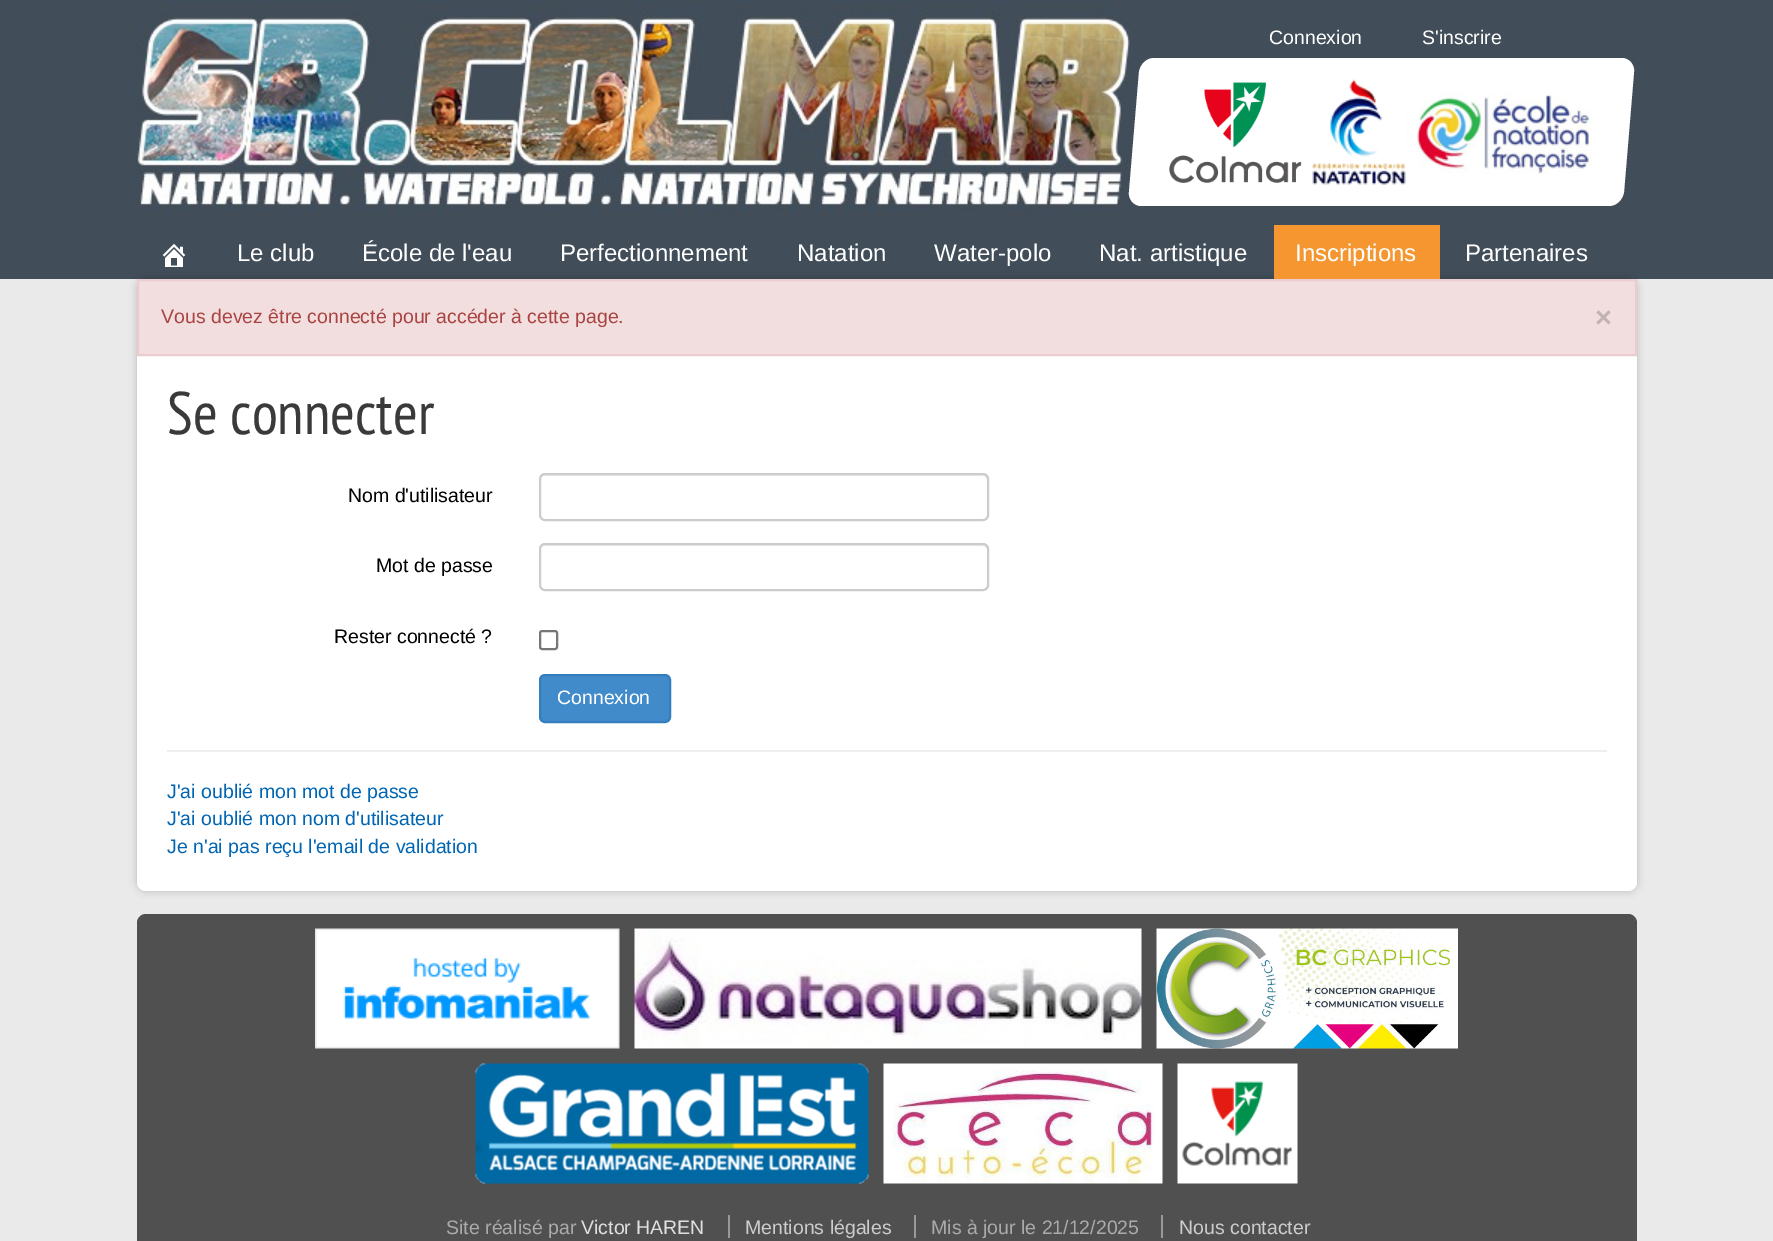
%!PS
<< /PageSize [1773 1241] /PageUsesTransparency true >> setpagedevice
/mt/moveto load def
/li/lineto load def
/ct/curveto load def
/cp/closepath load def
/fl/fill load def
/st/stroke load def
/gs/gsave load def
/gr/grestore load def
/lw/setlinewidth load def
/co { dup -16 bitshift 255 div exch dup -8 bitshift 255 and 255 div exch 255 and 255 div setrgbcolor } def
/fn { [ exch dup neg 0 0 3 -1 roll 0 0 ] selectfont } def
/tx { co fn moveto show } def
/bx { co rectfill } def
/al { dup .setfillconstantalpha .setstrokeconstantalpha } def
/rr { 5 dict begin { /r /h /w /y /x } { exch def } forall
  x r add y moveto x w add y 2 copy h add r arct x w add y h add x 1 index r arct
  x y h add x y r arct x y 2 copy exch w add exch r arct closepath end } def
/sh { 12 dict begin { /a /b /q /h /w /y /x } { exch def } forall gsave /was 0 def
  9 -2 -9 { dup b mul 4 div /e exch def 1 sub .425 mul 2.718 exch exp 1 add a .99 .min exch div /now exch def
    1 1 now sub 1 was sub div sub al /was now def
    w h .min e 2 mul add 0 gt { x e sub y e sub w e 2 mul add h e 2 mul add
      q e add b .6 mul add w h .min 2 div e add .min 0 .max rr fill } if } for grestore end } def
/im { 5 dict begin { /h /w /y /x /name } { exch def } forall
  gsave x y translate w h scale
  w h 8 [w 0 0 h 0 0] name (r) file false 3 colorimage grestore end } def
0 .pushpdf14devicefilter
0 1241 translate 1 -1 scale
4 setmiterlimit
0 0 1773 1241 16#EAEAEA bx
0 0 1773 279 16#414E59 bx
(media/1.raw) 136 0 994 216 im
16#FFFFFF co
1154 58 mt 1622 58 li 1629 58 1635 65 1634 72 ct 1624 192 li 1623 199 1617 206 1609 206 ct 1141 206 li 1134 206 1128 199 1129 192 ct 1139 72 li 1140 65 1146 58 1154 58 ct cp fl
(media/2.raw) 1169 82 133 101 im
(media/3.raw) 1312 79 98 106 im
(media/4.raw) 1416 92 176 82 im
16#000000 co
137 279 1500 612 9 4 .2 sh
(media/5.raw) 162 243 24 24 im
1274 225 166 54 16#F59630 bx
16#FFFFFF co
137 279 mt 1637 279 li 1637 882 li 1637 887 1633 891 1628 891 ct 146 891 li 141 891 137 887 137 882 ct cp fl
16#F2DEDE co
138 280 mt 1636 280 li 1636 355 li 138 355 li cp gs fl gr
16#EBCCD1 co
2 lw
st
16#ECECEC co
544 476 mt 982 476 li 985 476 987 478 987 480 ct 987 477 985 474 982 474 ct 545 474 li 542 474 540 477 540 480 ct 540 478 542 476 544 476 ct cp fl
16#CCCCCC co
540 474 448 46 5 rr st
16#ECECEC co
544 546 mt 982 546 li 985 546 987 548 987 550 ct 987 547 985 545 982 545 ct 545 545 li 542 545 540 547 540 550 ct 540 548 542 546 544 546 ct cp fl
16#CCCCCC co
540 544 448 46 5 rr st
16#767676 co
540 631 17 18 2 rr st
16#428BCA co
540 675 130 47 5 rr gs fl gr
16#357EBD co
st
167 750 1440 2 16#EEEEEE bx
16#505050 co
146 914 mt 1628 914 li 1633 914 1637 918 1637 923 ct 1637 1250 li 137 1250 li 137 923 li 137 918 141 914 146 914 ct cp fl
(media/6.raw) 315 928 305 121 im
(media/7.raw) 634 928 508 121 im
(media/8.raw) 1156 928 302 121 im
(media/9.raw) 475 1063 394 121 im
(media/10.raw) 883 1063 280 121 im
(media/11.raw) 1177 1063 121 121 im
728 1215 2 23 16#999999 bx
914 1215 2 23 16#999999 bx
1161 1215 2 23 16#999999 bx
(Connexion) 1269 44 /LiberationSans-Regular 19.5 16#FFFFFF tx
(S'inscrire) 1422 44 /LiberationSans-Regular 19.5 16#FFFFFF tx
(Le club) 237 261 /LiberationSans-Regular 24 16#FFFFFF tx
(École de l'eau) 362 261 /LiberationSans-Regular 24 16#FFFFFF tx
(Perfectionnement) 560 261 /LiberationSans-Regular 24 16#FFFFFF tx
(Natation) 797 261 /LiberationSans-Regular 24 16#FFFFFF tx
(Water-polo) 934 261 /LiberationSans-Regular 24 16#FFFFFF tx
(Nat. artistique) 1099 261 /LiberationSans-Regular 24 16#FFFFFF tx
(Inscriptions) 1295 261 /LiberationSans-Regular 24 16#FFFFFF tx
(Partenaires) 1465 261 /LiberationSans-Regular 24 16#FFFFFF tx
(Vous devez être connecté pour accéder à cette page.) 161 323 /LiberationSans-Regular 19.5 16#A94442 tx
(×) 1595 327 /LiberationSans-Bold 29 16#C2B2B2 tx
(Se connecter) 167 434 /PTSansNarrow-Regular 60 16#3A3A3A tx
(Nom d'utilisateur) 348 502 /LiberationSans-Regular 19.5 16#000000 tx
(Mot de passe) 376 572 /LiberationSans-Regular 19.5 16#000000 tx
(Rester connecté ?) 334 643 /LiberationSans-Regular 19.5 16#000000 tx
(Connexion) 557 704 /LiberationSans-Regular 19.5 16#FFFFFF tx
(J'ai oublié mon mot de passe) 167 798 /LiberationSans-Regular 19.5 16#0066B3 tx
(J'ai oublié mon nom d'utilisateur) 167 825 /LiberationSans-Regular 19.5 16#0066B3 tx
(Je n'ai pas reçu l'email de validation) 167 853 /LiberationSans-Regular 19.5 16#0066B3 tx
(Site réalisé par) 446 1234 /LiberationSans-Regular 19.5 16#AAAAAA tx
(Victor HAREN) 581 1234 /LiberationSans-Regular 19.5 16#DFDFDF tx
(Mentions légales) 745 1234 /LiberationSans-Regular 19.5 16#CCCCCC tx
(Mis à jour le 21/12/2025) 931 1234 /LiberationSans-Regular 19.5 16#AAAAAA tx
(Nous contacter) 1179 1234 /LiberationSans-Regular 19.5 16#CCCCCC tx
.poppdf14devicefilter showpage
